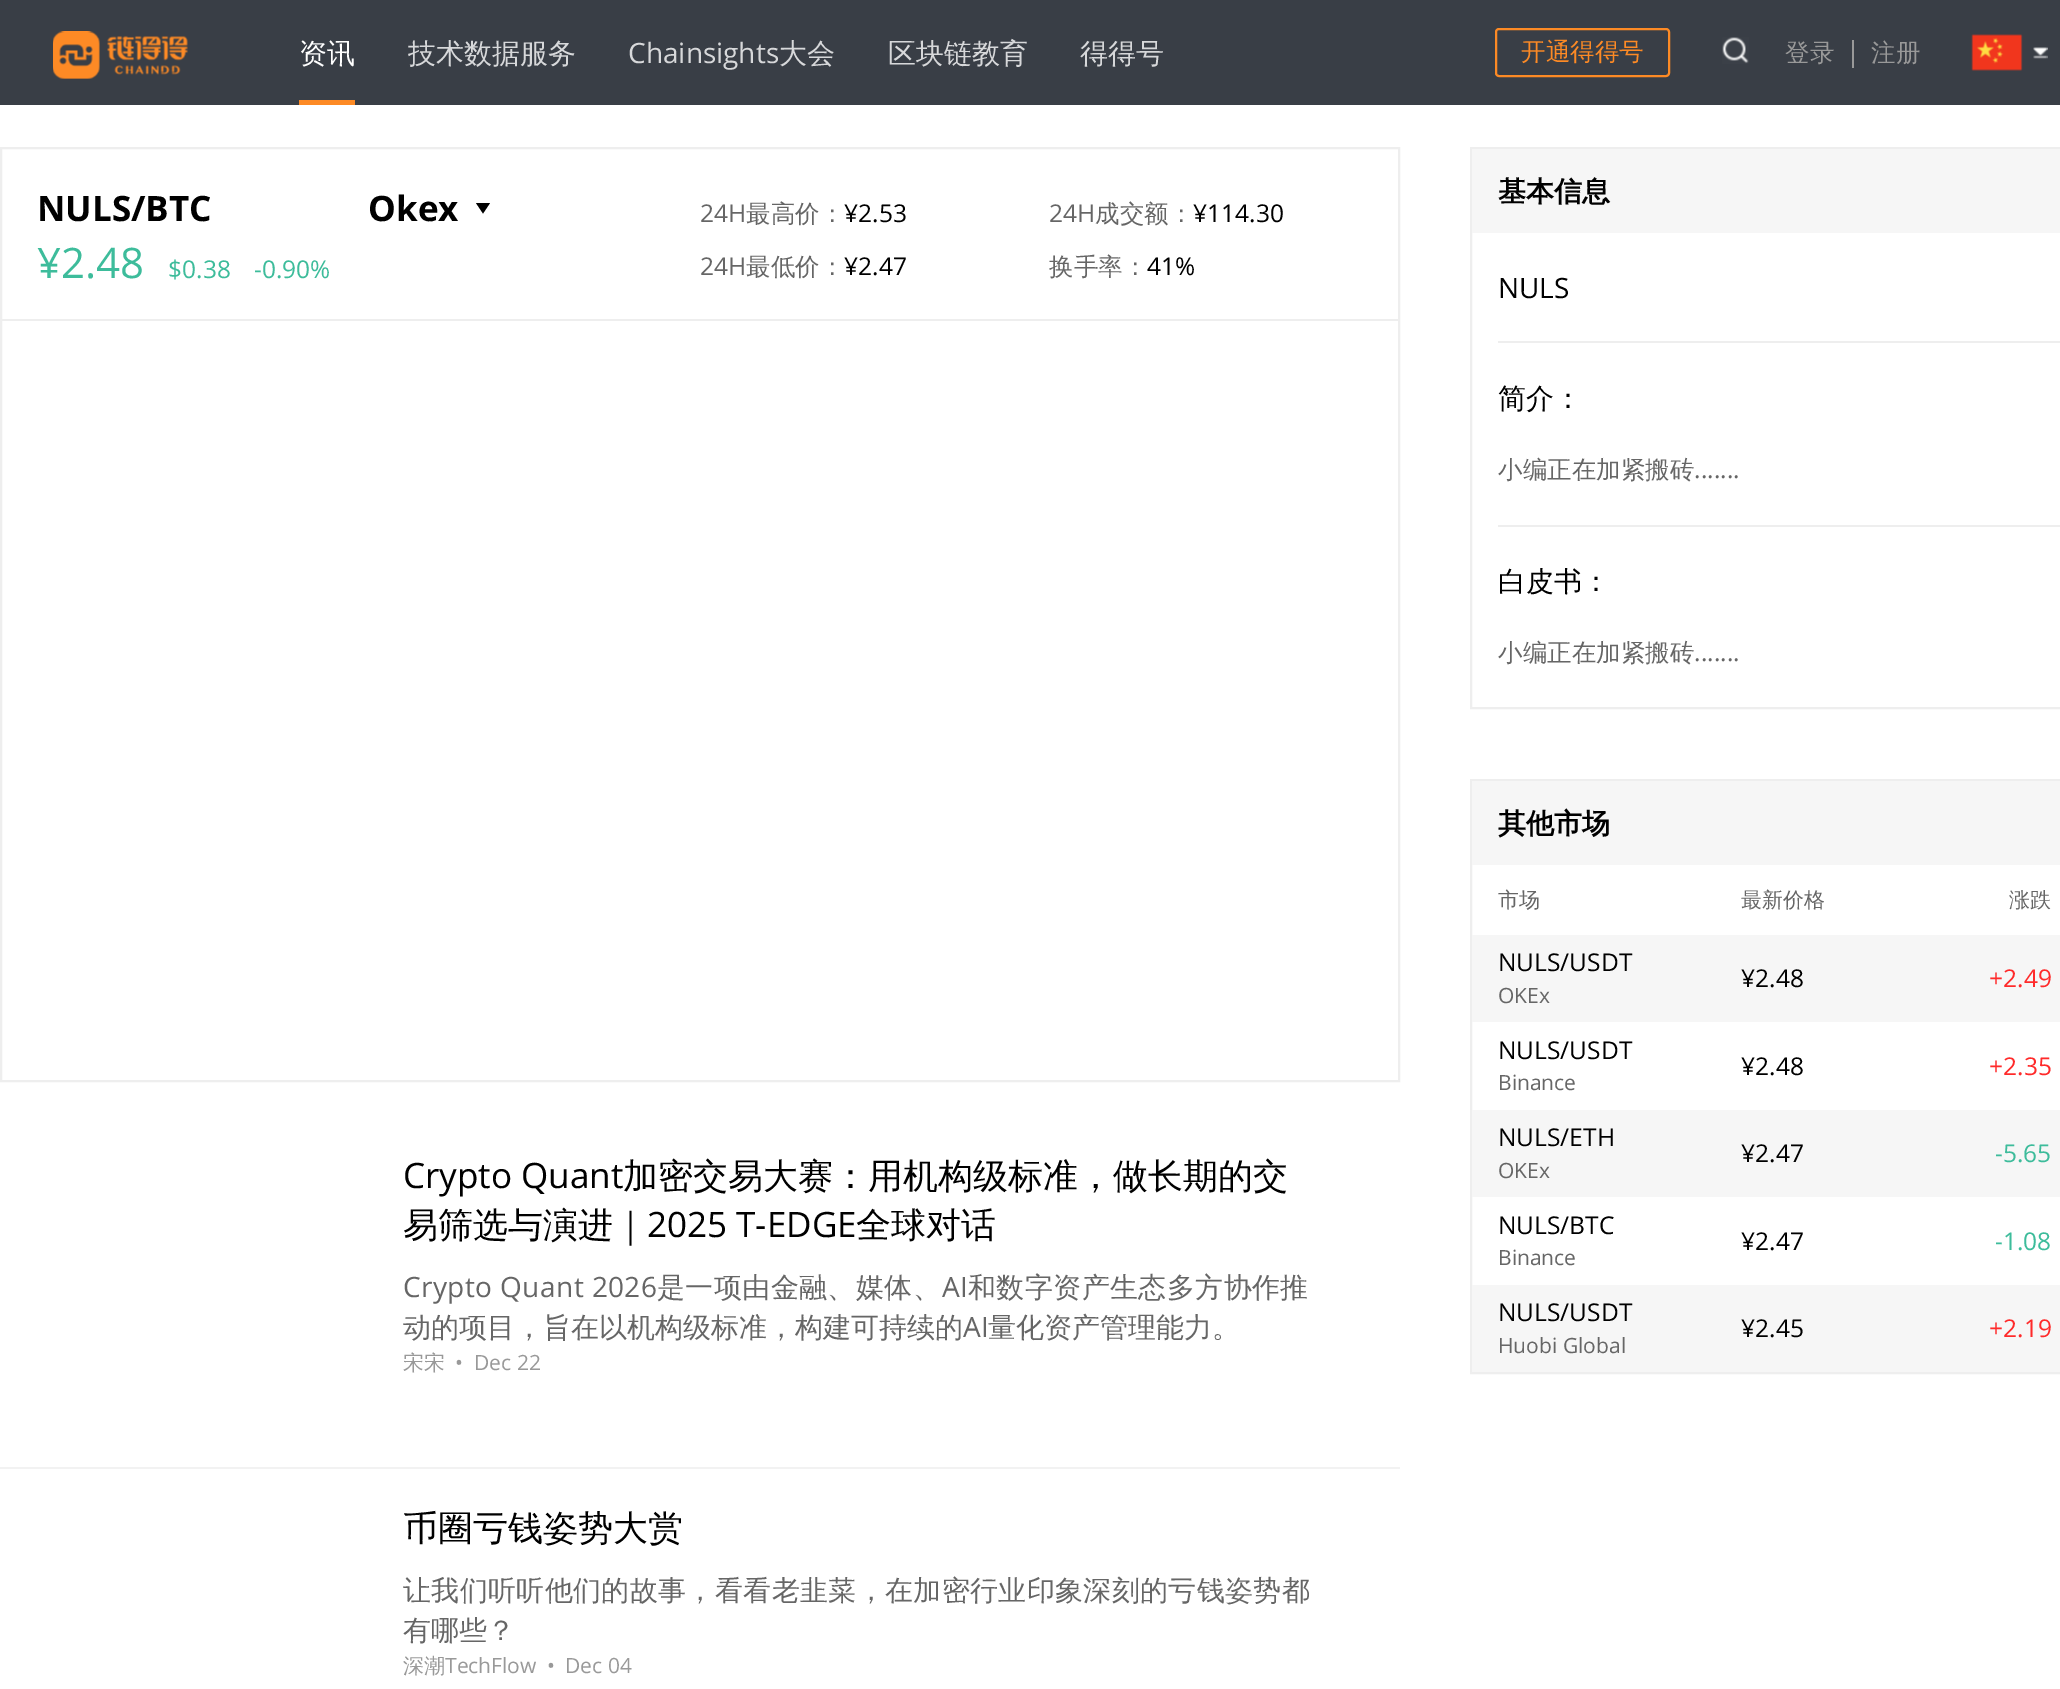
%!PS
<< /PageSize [2060 1689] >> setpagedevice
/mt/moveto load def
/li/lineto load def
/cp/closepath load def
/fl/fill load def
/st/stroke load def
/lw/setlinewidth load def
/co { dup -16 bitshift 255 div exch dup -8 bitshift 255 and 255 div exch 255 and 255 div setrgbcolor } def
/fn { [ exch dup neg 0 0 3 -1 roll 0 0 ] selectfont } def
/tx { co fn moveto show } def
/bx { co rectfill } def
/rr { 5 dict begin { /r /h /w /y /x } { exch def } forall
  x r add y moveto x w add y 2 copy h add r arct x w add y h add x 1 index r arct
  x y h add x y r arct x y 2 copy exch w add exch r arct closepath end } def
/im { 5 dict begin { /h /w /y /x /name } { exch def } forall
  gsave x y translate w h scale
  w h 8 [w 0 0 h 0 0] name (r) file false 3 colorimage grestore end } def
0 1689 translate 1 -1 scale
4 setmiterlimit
0 0 2060 1689 16#FFFFFF bx
0 0 2060 105 16#393E46 bx
(media/1.raw) 53 31 135 48 im
299 100 56 5 16#FD8A25 bx
2 lw
1496 29 173 47 3 rr st
(media/2.raw) 1722 37 27 27 im
1852 40 2 28 16#999999 bx
(media/3.raw) 1971 34 52 37 im
(media/4.raw) 2033 47 15 12 im
16#000000 co
476 203 mt 490 203 li 483 213.5 li cp fl
16#EEEEEE co
1 148 1398 933 rectstroke
2 319 1396 2 16#EEEEEE bx
0 1467 1400 2 16#F2F2F2 bx
16#EEEEEE co
1471 148 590 560 rectstroke
1472 149 588 84 16#F6F6F6 bx
1498 341 562 2 16#EEEEEE bx
1498 525 562 2 16#EEEEEE bx
1471 780 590 593 rectstroke
1472 781 588 84 16#F6F6F6 bx
1472 935 588 87 16#F6F6F6 bx
1472 1110 588 87 16#F6F6F6 bx
1472 1285 588 87 16#F6F6F6 bx
(资讯) 299 63 /WenQuanYiZenHei-Medium 28 16#FFFFFF tx
(技术数据服务) 408 63 /WenQuanYiZenHei-Medium 28 16#D7D8DA tx
(Chainsights) 628 63 /OpenSans-Regular 28 16#D7D8DA tx
(大会) 779 63 /WenQuanYiZenHei-Medium 28 16#D7D8DA tx
(区块链教育) 888 63 /WenQuanYiZenHei-Medium 28 16#D7D8DA tx
(得得号) 1080 63 /WenQuanYiZenHei-Medium 28 16#D7D8DA tx
(开通得得号) 1521 60 /WenQuanYiZenHei-Medium 24.5 16#FD8A25 tx
(登录) 1785 61 /WenQuanYiZenHei-Medium 24.5 16#999999 tx
(注册) 1871 61 /WenQuanYiZenHei-Medium 24.5 16#999999 tx
(NULS/BTC) 37 221 /OpenSans-Bold 35 16#000000 tx
(Okex) 368 221 /OpenSans-Bold 35 16#000000 tx
(¥2.48) 37 278 /OpenSans-Regular 42 16#3DBC9B tx
($0.38) 168 278 /OpenSans-Regular 24.5 16#3DBC9B tx
(-0.90%) 254 278 /OpenSans-Regular 24.5 16#3DBC9B tx
(24H) 700 222 /OpenSans-Regular 24.5 16#666666 tx
(最高价：) 746 222 /WenQuanYiZenHei-Medium 24.5 16#666666 tx
(¥2.53) 844 222 /OpenSans-Regular 24.5 16#000000 tx
(24H) 1049 222 /OpenSans-Regular 24.5 16#666666 tx
(成交额：) 1095 222 /WenQuanYiZenHei-Medium 24.5 16#666666 tx
(¥114.30) 1193 222 /OpenSans-Regular 24.5 16#000000 tx
(24H) 700 275 /OpenSans-Regular 24.5 16#666666 tx
(最低价：) 746 275 /WenQuanYiZenHei-Medium 24.5 16#666666 tx
(¥2.47) 844 275 /OpenSans-Regular 24.5 16#000000 tx
(换手率：) 1049 275 /WenQuanYiZenHei-Medium 24.5 16#666666 tx
(41%) 1147 275 /OpenSans-Regular 24.5 16#000000 tx
(Crypto Quant) 403 1188 /OpenSans-Regular 35 16#000000 tx
(加密交易大赛：用机构级标准，做长期的交) 623 1188 /WenQuanYiZenHei-Medium 35 16#000000 tx
(易筛选与演进｜) 403 1237 /WenQuanYiZenHei-Medium 35 16#000000 tx
(2025 T-EDGE) 647 1237 /OpenSans-Regular 35 16#000000 tx
(全球对话) 856 1237 /WenQuanYiZenHei-Medium 35 16#000000 tx
/OpenSans-Regular 28 fn
16#666666 co
403 1297 mt .4 0 (Crypto Quant 2026) ashow
/WenQuanYiZenHei-Medium 28 fn
657 1297 mt .4 0 (是一项由金融、媒体、) ashow
/OpenSans-Regular 28 fn
942 1297 mt .4 0 (AI) ashow
/WenQuanYiZenHei-Medium 28 fn
968 1297 mt .4 0 (和数字资产生态多方协作推) ashow
(动的项目，旨在以机构级标准，构建可持续的) 403 1337 /WenQuanYiZenHei-Medium 28 16#666666 tx
(AI) 963 1337 /OpenSans-Regular 28 16#666666 tx
(量化资产管理能力。) 988 1337 /WenQuanYiZenHei-Medium 28 16#666666 tx
(宋宋) 403 1370 /WenQuanYiZenHei-Medium 21 16#999999 tx
(•) 455 1370 /OpenSans-Regular 21 16#999999 tx
(Dec 22) 474 1370 /OpenSans-Regular 21 16#999999 tx
(币圈亏钱姿势大赏) 403 1540 /WenQuanYiZenHei-Medium 35 16#000000 tx
/WenQuanYiZenHei-Medium 28 fn
16#666666 co
403 1600 mt .35 0 (让我们听听他们的故事，看看老韭菜，在加密行业印象深刻的亏钱姿势都) ashow
(有哪些？) 403 1640 /WenQuanYiZenHei-Medium 28 16#666666 tx
(深潮) 403 1673 /WenQuanYiZenHei-Medium 21 16#999999 tx
(TechFlow) 445 1673 /OpenSans-Regular 21 16#999999 tx
(•) 547 1673 /OpenSans-Regular 21 16#999999 tx
(Dec 04) 565 1673 /OpenSans-Regular 21 16#999999 tx
(基本信息) 1498 201 /WenQuanYiZenHei-Bold 28 16#000000 tx
(NULS) 1498 298 /OpenSans-Regular 28 16#000000 tx
(简介：) 1498 408 /WenQuanYiZenHei-Medium 28 16#000000 tx
(小编正在加紧搬砖) 1498 478 /WenQuanYiZenHei-Medium 24.5 16#666666 tx
(.......) 1694 478 /OpenSans-Regular 24.5 16#666666 tx
(白皮书：) 1498 591 /WenQuanYiZenHei-Medium 28 16#000000 tx
(小编正在加紧搬砖) 1498 661 /WenQuanYiZenHei-Medium 24.5 16#666666 tx
(.......) 1694 661 /OpenSans-Regular 24.5 16#666666 tx
(其他市场) 1498 833 /WenQuanYiZenHei-Bold 28 16#000000 tx
(市场) 1498 907 /WenQuanYiZenHei-Medium 21 16#666666 tx
(最新价格) 1741 907 /WenQuanYiZenHei-Medium 21 16#666666 tx
(涨跌) 2009 907 /WenQuanYiZenHei-Medium 21 16#666666 tx
(NULS/USDT) 1498 971 /OpenSans-Regular 24.5 16#000000 tx
(OKEx) 1498 1003 /OpenSans-Regular 21 16#666666 tx
(¥2.48) 1741 987 /OpenSans-Regular 24.5 16#000000 tx
(+2.49) 1989 987 /OpenSans-Regular 24.5 16#FF2A2A tx
(NULS/USDT) 1498 1059 /OpenSans-Regular 24.5 16#000000 tx
(Binance) 1498 1090 /OpenSans-Regular 21 16#666666 tx
(¥2.48) 1741 1075 /OpenSans-Regular 24.5 16#000000 tx
(+2.35) 1989 1075 /OpenSans-Regular 24.5 16#FF2A2A tx
(NULS/ETH) 1498 1146 /OpenSans-Regular 24.5 16#000000 tx
(OKEx) 1498 1178 /OpenSans-Regular 21 16#666666 tx
(¥2.47) 1741 1162 /OpenSans-Regular 24.5 16#000000 tx
(-5.65) 1995 1162 /OpenSans-Regular 24.5 16#3DBC9B tx
(NULS/BTC) 1498 1234 /OpenSans-Regular 24.5 16#000000 tx
(Binance) 1498 1265 /OpenSans-Regular 21 16#666666 tx
(¥2.47) 1741 1250 /OpenSans-Regular 24.5 16#000000 tx
(-1.08) 1995 1250 /OpenSans-Regular 24.5 16#3DBC9B tx
(NULS/USDT) 1498 1321 /OpenSans-Regular 24.5 16#000000 tx
(Huobi Global) 1498 1353 /OpenSans-Regular 21 16#666666 tx
(¥2.45) 1741 1337 /OpenSans-Regular 24.5 16#000000 tx
(+2.19) 1989 1337 /OpenSans-Regular 24.5 16#FF2A2A tx
showpage
